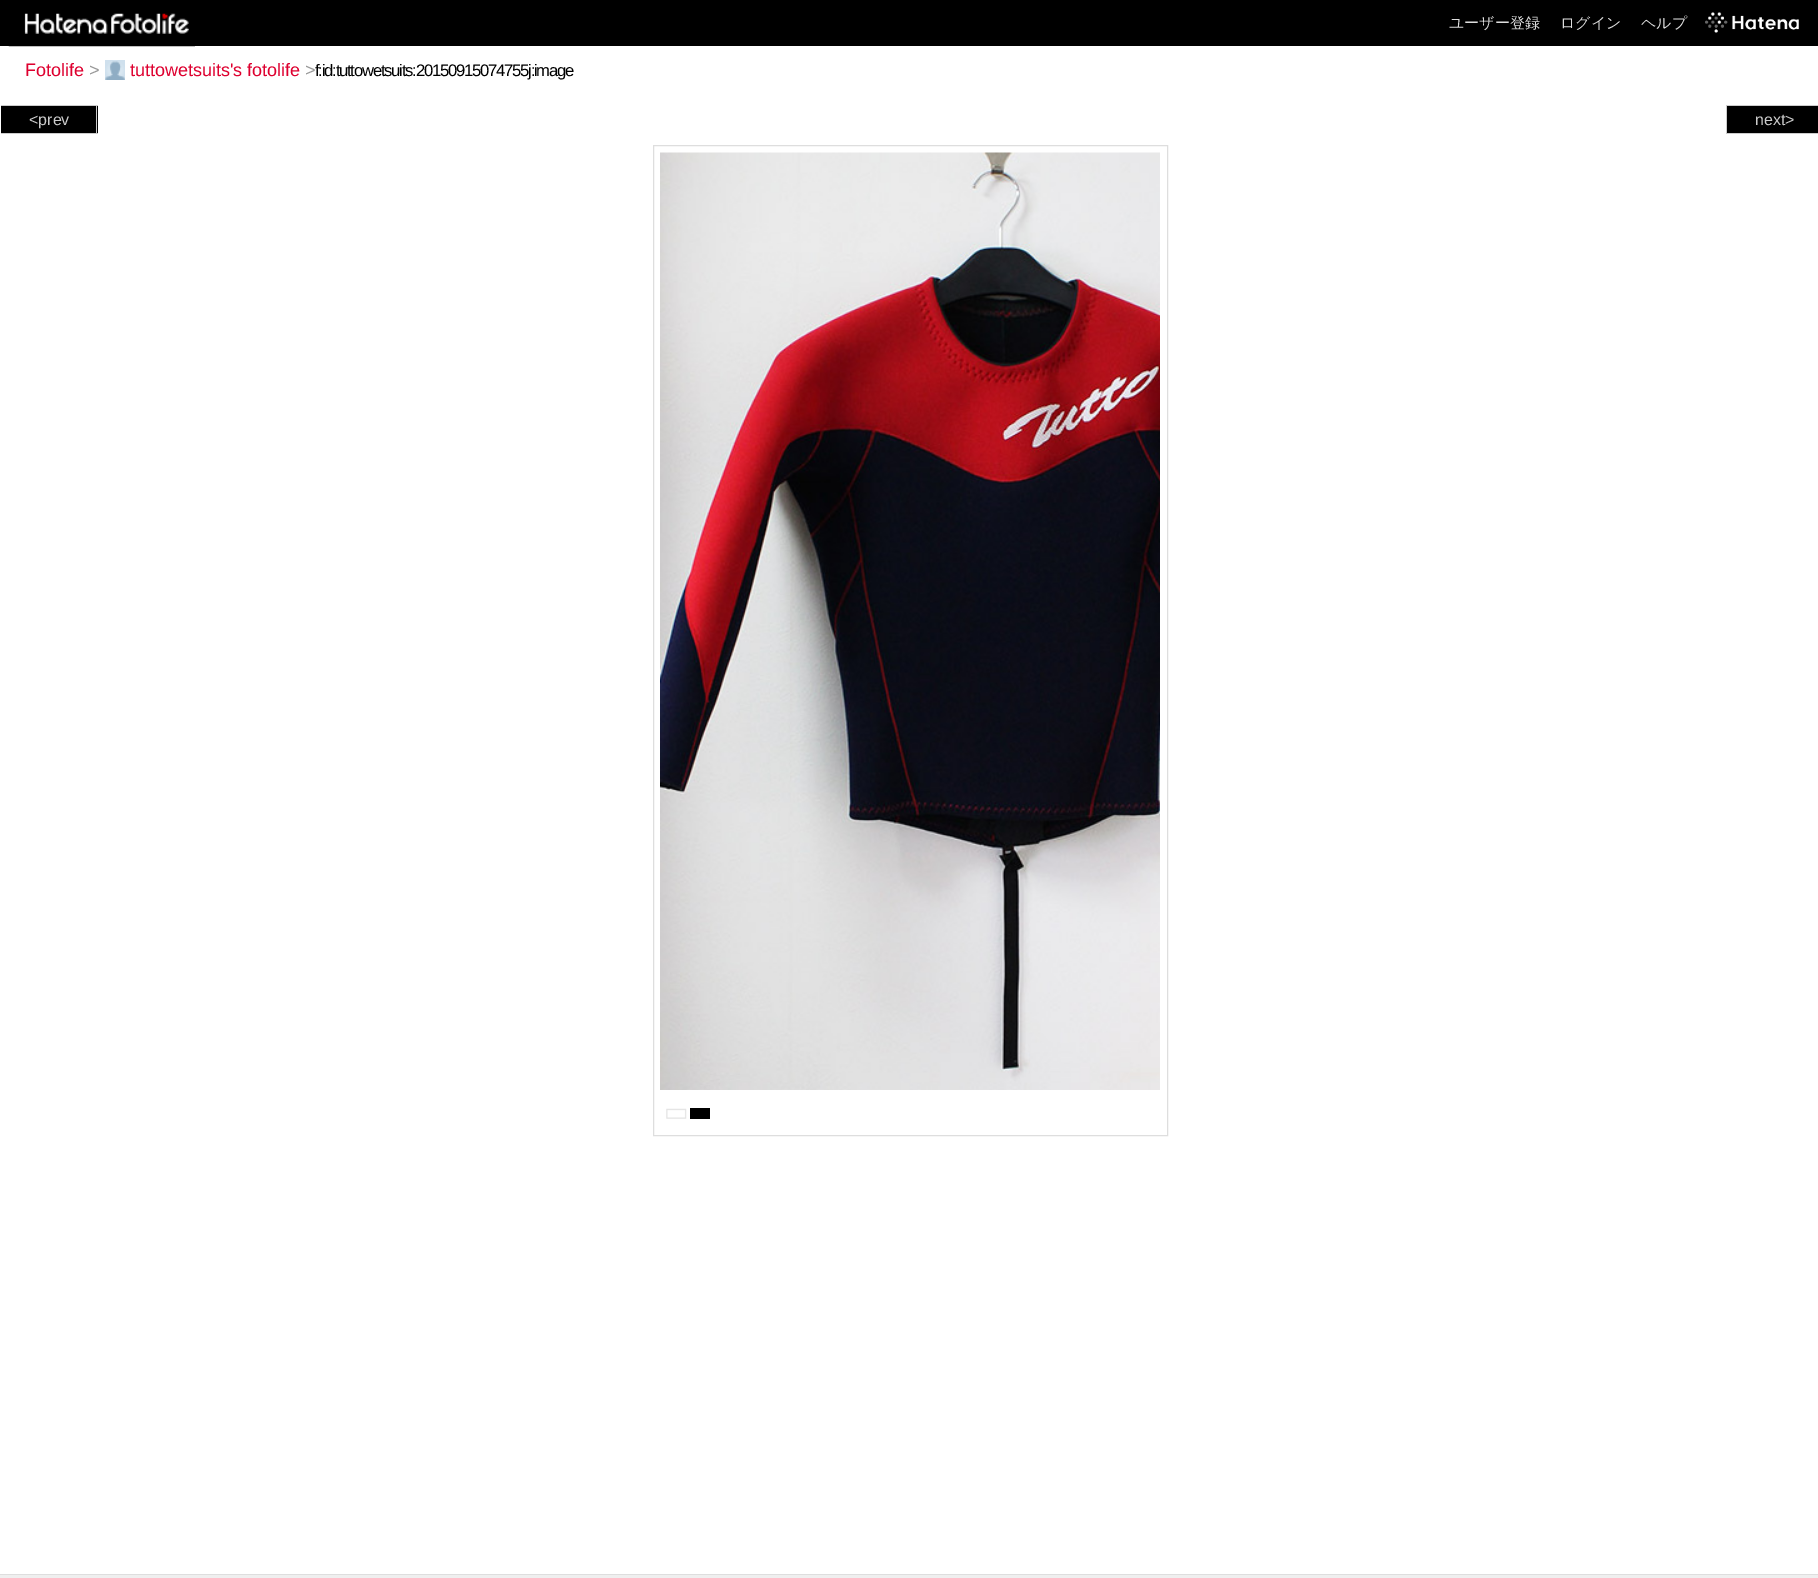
%!PS
<< /PageSize [1818 1578] >> setpagedevice
/mt/moveto load def
/co { dup -16 bitshift 255 div exch dup -8 bitshift 255 and 255 div exch 255 and 255 div setrgbcolor } def
/fn { [ exch dup neg 0 0 3 -1 roll 0 0 ] selectfont } def
/tx { co fn moveto show } def
/bx { co rectfill } def
/im { 5 dict begin { /h /w /y /x /name } { exch def } forall
  gsave x y translate w h scale
  w h 8 [w 0 0 h 0 0] name (r) file false 3 colorimage grestore end } def
0 1578 translate 1 -1 scale
4 setmiterlimit
0 0 1818 1578 16#EFEFEF bx
0 0 1818 46 16#000000 bx
0 46 1818 1528 16#FFFFFF bx
(media/1.raw) 8 13 104 34 im
(media/2.raw) 111 13 84 34 im
(media/3.raw) 1705 12 94 21 im
(media/4.raw) 105 60 20 20 im
0 1574 1818 1 16#DEDEDE bx
1 106 97 27 16#000000 bx
1 105 97 1 16#CCCCCC bx
96 105 1 29 16#CCCCCC bx
1 133 97 1 16#CCCCCC bx
1727 106 91 27 16#000000 bx
1726 105 92 1 16#CCCCCC bx
1726 133 92 1 16#CCCCCC bx
1726 105 1 29 16#CCCCCC bx
16#DEDEDE co
653.5 145.5 514 990 rectstroke
(media/5.raw) 660 152 500 938 im
(media/6.raw) 666 1108 21 11 im
690 1108 20 11 16#000000 bx
(ユーザー登録) 1449 28 /WenQuanYiZenHei-Medium 15 16#DDDDDD tx
(ログイン) 1560 28 /WenQuanYiZenHei-Medium 15 16#DDDDDD tx
(ヘルプ) 1641 28 /WenQuanYiZenHei-Medium 15 16#DDDDDD tx
(Fotolife) 25 76 /LiberationSans-Regular 18 16#DE002F tx
(>) 89 76 /LiberationSans-Regular 18 16#999999 tx
(tuttowetsuits's fotolife) 130 76 /LiberationSans-Regular 18 16#DE002F tx
(>) 305 76 /LiberationSans-Regular 18 16#999999 tx
/LiberationSans-Regular 16.7 fn
16#000000 co
315 76 mt -1.25 0 (f:id:tuttowetsuits:20150915074755j:image) ashow
(<prev) 29 125 /LiberationSans-Regular 16 16#CCCCCC tx
(next>) 1755 125 /LiberationSans-Regular 16 16#CCCCCC tx
showpage
